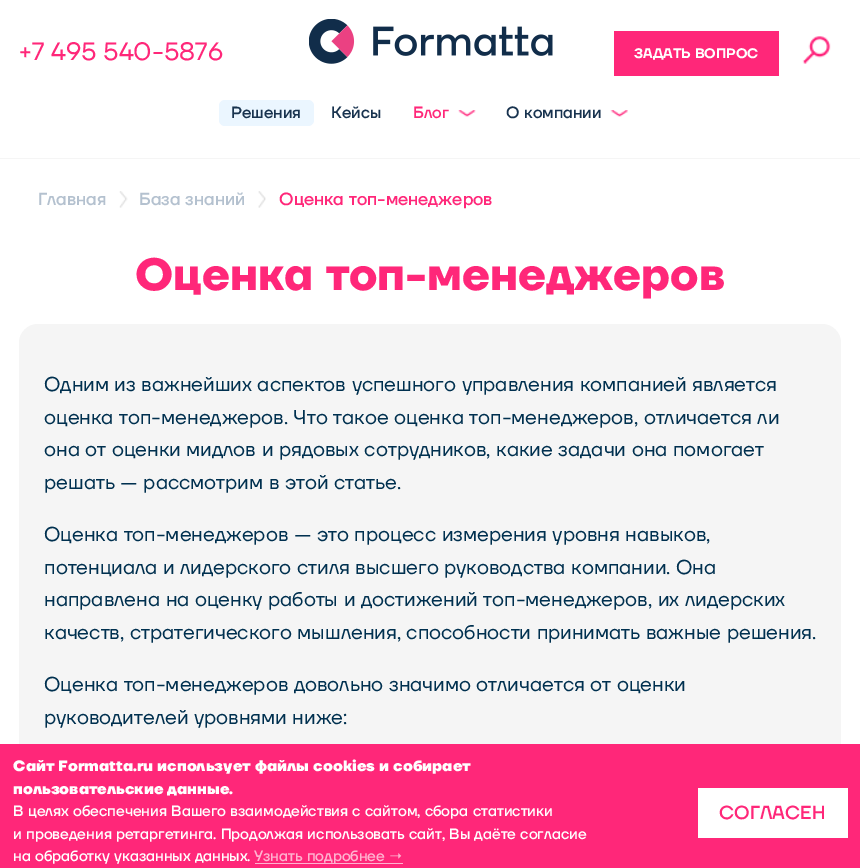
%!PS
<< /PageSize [860 868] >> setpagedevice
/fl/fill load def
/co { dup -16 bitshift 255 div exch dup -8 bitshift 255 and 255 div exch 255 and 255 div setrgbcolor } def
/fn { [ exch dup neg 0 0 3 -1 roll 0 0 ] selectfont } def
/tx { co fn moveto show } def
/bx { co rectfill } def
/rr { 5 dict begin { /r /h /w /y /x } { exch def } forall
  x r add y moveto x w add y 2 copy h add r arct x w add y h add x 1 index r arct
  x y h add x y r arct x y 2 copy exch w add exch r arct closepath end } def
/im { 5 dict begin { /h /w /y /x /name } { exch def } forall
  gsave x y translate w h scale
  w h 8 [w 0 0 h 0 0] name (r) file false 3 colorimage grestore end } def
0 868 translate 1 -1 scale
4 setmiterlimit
0 0 860 868 16#FFFFFF bx
0 158 860 1 16#F5F5F5 bx
(media/1.raw) 309 19 244 45 im
614 31 165 45 16#FF2779 bx
(media/2.raw) 802 36 29 28 im
16#EBF6FF co
219 100 95 26 6 rr fl
(media/3.raw) 458 110 18 7 im
(media/4.raw) 610 110 18 7 im
(media/5.raw) 119 191 9 17 im
(media/6.raw) 258 191 8 17 im
16#F5F5F5 co
19 324 822 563 19 rr fl
0 744 860 124 16#FF2779 bx
255 863 148 1 16#FFB3D0 bx
698 788 150 50 16#FFFFFF bx
(+7 495 540-5876) 19 60 /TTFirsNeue-Regular 25 16#FF2779 tx
(ЗАДАТЬ ВОПРОС) 634 58 /TTFirsNeue-SemiBold 13.75 16#FFFFFF tx
(Решения) 231 118 /TTFirsNeue-Medium 16.25 16#18334F tx
(Кейсы) 331 118 /TTFirsNeue-Medium 16.25 16#18334F tx
(Блог) 413 118 /TTFirsNeue-Medium 16.25 16#FF2779 tx
(О компании) 506 118 /TTFirsNeue-Medium 16.25 16#18334F tx
(Главная) 38 205 /TTFirsNeue-Medium 17.5 16#B4C1CF tx
(База знаний) 139 205 /TTFirsNeue-Medium 17.5 16#B4C1CF tx
(Оценка топ-менеджеров) 279 205 /TTFirsNeue-Medium 17.5 16#FF2779 tx
(Оценка топ-менеджеров) 135 290 /TTFirsNeue-Bold 45 16#FF2779 tx
(Одним из важнейших аспектов успешного управления компанией является) 44 391 /TTFirsNeue-Regular 20 16#00304F tx
(оценка топ-менеджеров. Что такое оценка топ-менеджеров, отличается ли) 44 424 /TTFirsNeue-Regular 20 16#00304F tx
(она от оценки мидлов и рядовых сотрудников, какие задачи она помогает) 44 456 /TTFirsNeue-Regular 20 16#00304F tx
(решать — рассмотрим в этой статье.) 44 489 /TTFirsNeue-Regular 20 16#00304F tx
(Оценка топ-менеджеров — это процесс измерения уровня навыков,) 44 541 /TTFirsNeue-Regular 20 16#00304F tx
(потенциала и лидерского стиля высшего руководства компании. Она) 44 574 /TTFirsNeue-Regular 20 16#00304F tx
(направлена на оценку работы и достижений топ-менеджеров, их лидерских) 44 606 /TTFirsNeue-Regular 20 16#00304F tx
(качеств, стратегического мышления, способности принимать важные решения.) 44 639 /TTFirsNeue-Regular 20 16#00304F tx
(Оценка топ-менеджеров довольно значимо отличается от оценки) 44 691 /TTFirsNeue-Regular 20 16#00304F tx
(руководителей уровнями ниже:) 44 724 /TTFirsNeue-Regular 20 16#00304F tx
(Сайт Formatta.ru использует файлы cookies и собирает) 13 771 /TTFirsNeue-ExtraBold 15 16#FFFFFF tx
(пользовательские данные.) 13 794 /TTFirsNeue-ExtraBold 15 16#FFFFFF tx
(В целях обеспечения Вашего взаимодействия с сайтом, сбора статистики) 13 816 /TTFirsNeue-Medium 15 16#FFFFFF tx
(и проведения ретаргетинга. Продолжая использовать сайт, Вы даёте согласие) 13 839 /TTFirsNeue-Medium 15 16#FFFFFF tx
(на обработку указанных данных.) 13 861 /TTFirsNeue-Medium 15 16#FFFFFF tx
(Узнать подробнее →) 254 861 /TTFirsNeue-Medium 15 16#FFB3D0 tx
(СОГЛАСЕН) 719 819 /TTFirsNeue-Medium 18.75 16#FF2779 tx
showpage
